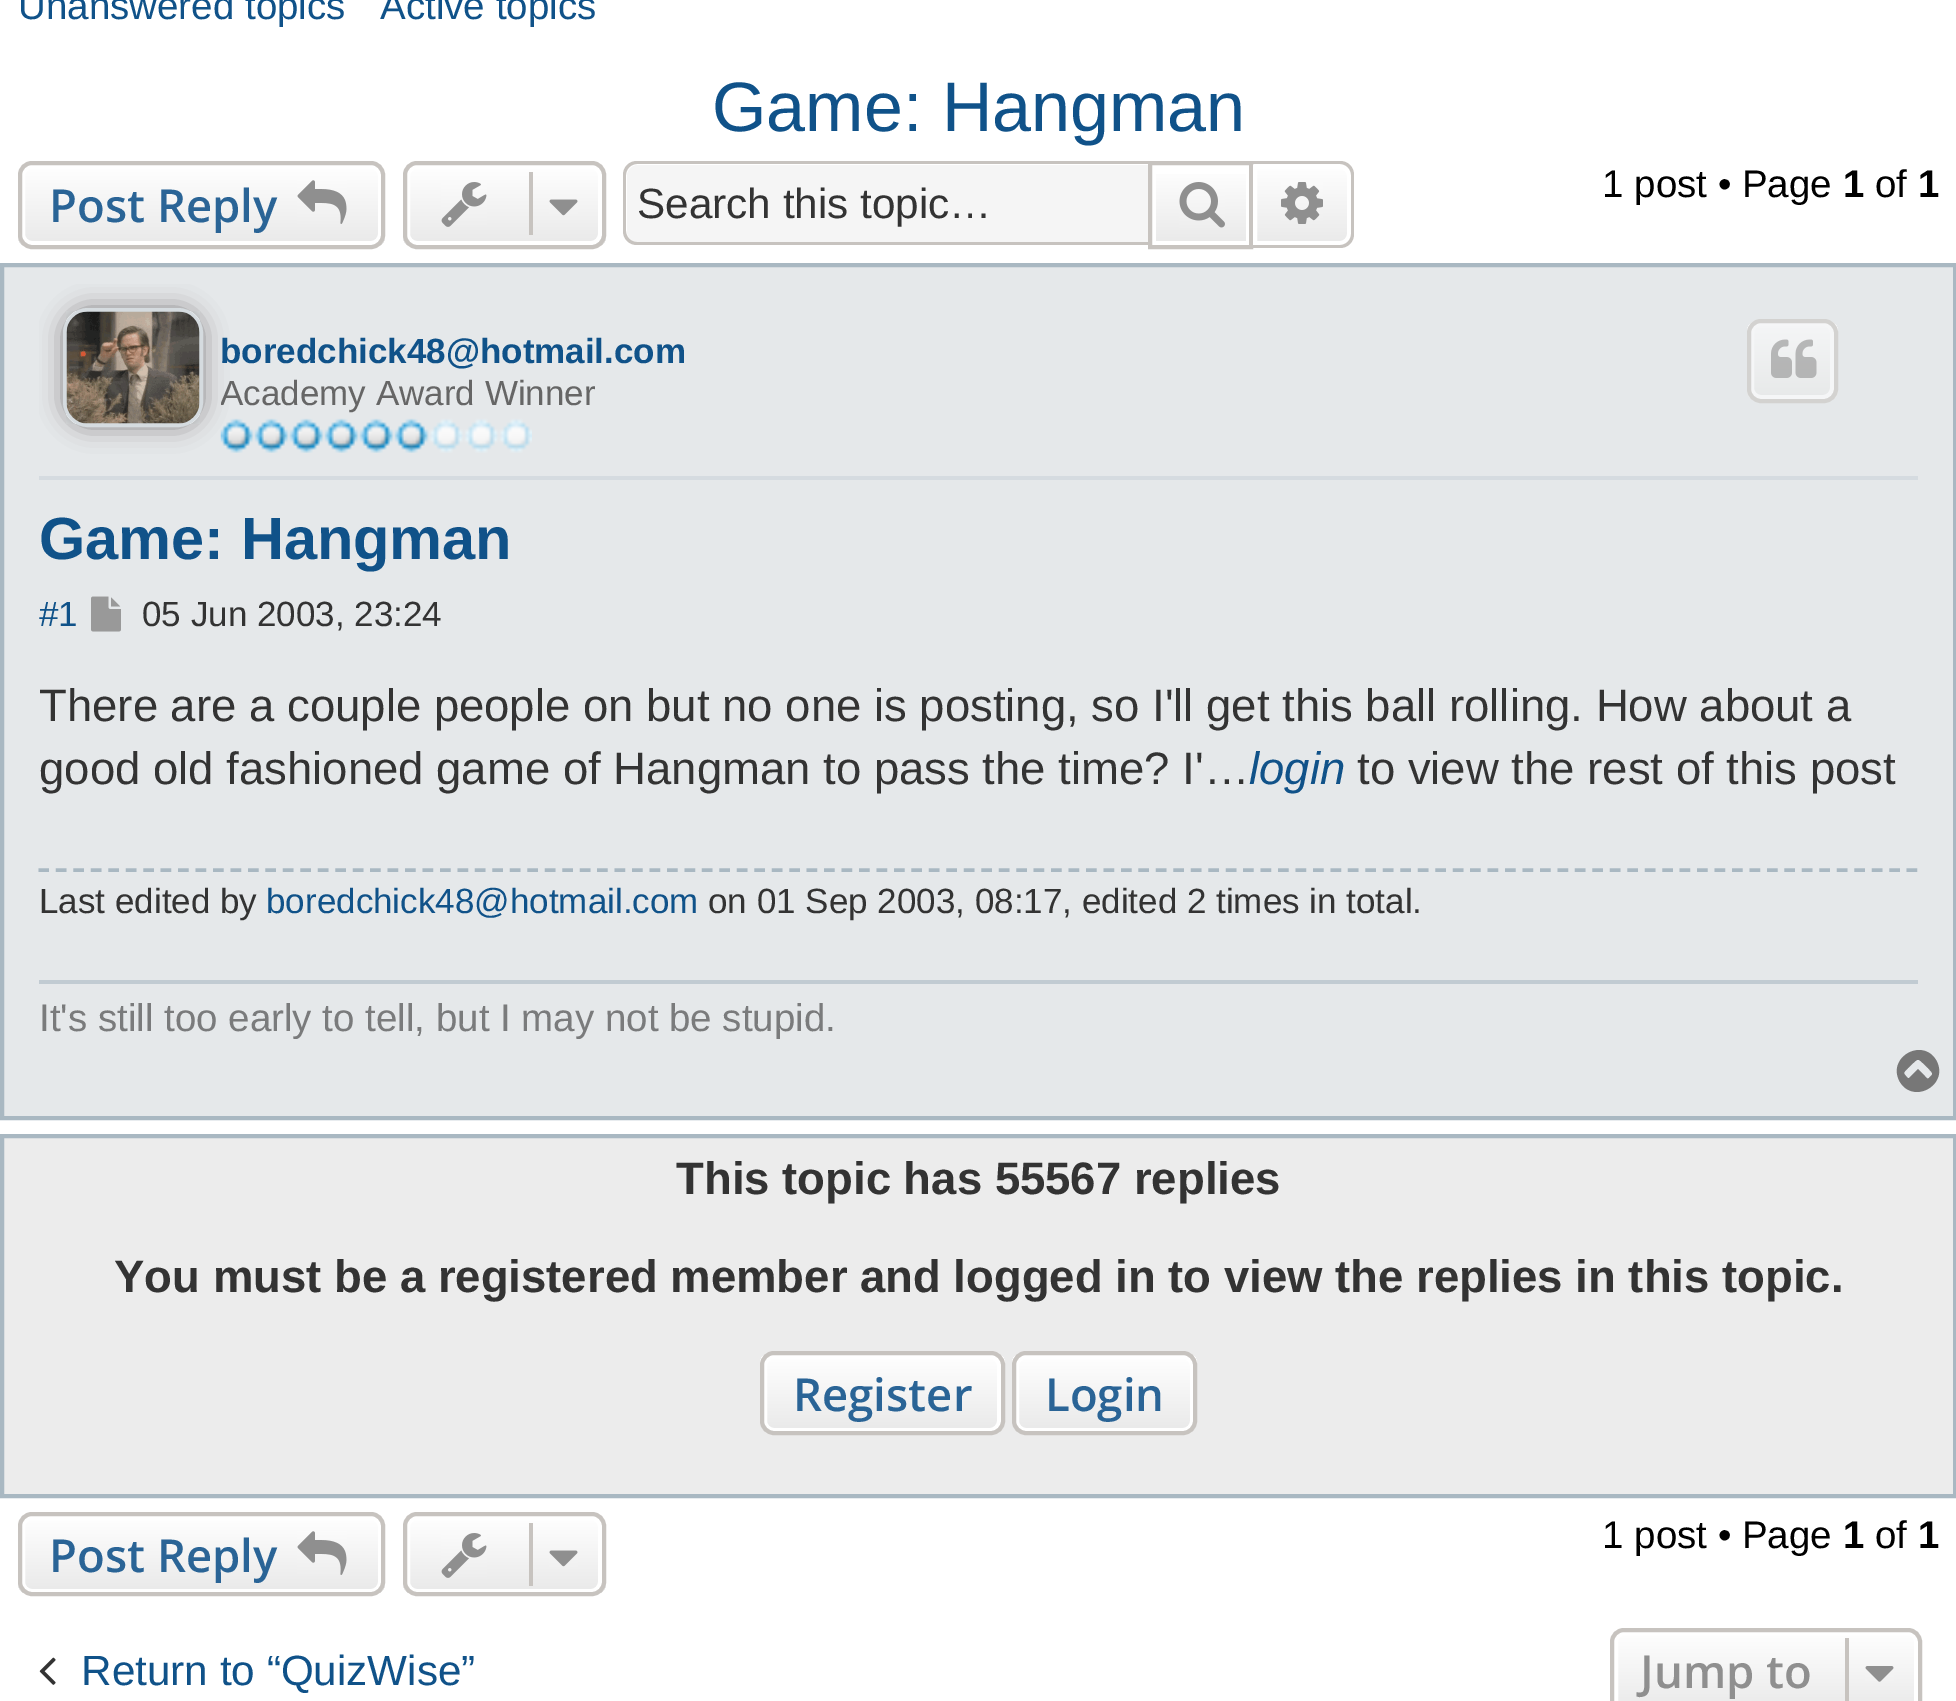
%!PS
<< /PageSize [1956 1701] /PageUsesTransparency true >> setpagedevice
/mt/moveto load def
/li/lineto load def
/ct/curveto load def
/cp/closepath load def
/fl/fill load def
/st/stroke load def
/gs/gsave load def
/gr/grestore load def
/lw/setlinewidth load def
/co { dup -16 bitshift 255 div exch dup -8 bitshift 255 and 255 div exch 255 and 255 div setrgbcolor } def
/fn { [ exch dup neg 0 0 3 -1 roll 0 0 ] selectfont } def
/tx { co fn moveto show } def
/bx { co rectfill } def
/al { dup .setfillconstantalpha .setstrokeconstantalpha } def
/rr { 5 dict begin { /r /h /w /y /x } { exch def } forall
  x r add y moveto x w add y 2 copy h add r arct x w add y h add x 1 index r arct
  x y h add x y r arct x y 2 copy exch w add exch r arct closepath end } def
/sh { 12 dict begin { /a /b /q /h /w /y /x } { exch def } forall gsave /was 0 def
  9 -2 -9 { dup b mul 4 div /e exch def 1 sub .425 mul 2.718 exch exp 1 add a .99 .min exch div /now exch def
    1 1 now sub 1 was sub div sub al /was now def
    w h .min e 2 mul add 0 gt { x e sub y e sub w e 2 mul add h e 2 mul add
      q e add b .6 mul add w h .min 2 div e add .min 0 .max rr fill } if } for grestore end } def
/im { 5 dict begin { /h /w /y /x /name } { exch def } forall
  gsave x y translate w h scale
  w h 8 [w 0 0 h 0 0] name (r) file false 3 colorimage grestore end } def
0 .pushpdf14devicefilter
0 1701 translate 1 -1 scale
4 setmiterlimit
0 0 1956 1701 16#FFFFFF bx
gs
18 161 367 88 14 rr clip newpath
gs 18 165 mt 385 165 li 385 245 li 18 245 li cp clip newpath
<< /ShadingType 2 /ColorSpace /DeviceRGB /Coords [201 164 201 245] /Extend [true true] /Function << /FunctionType 2 /Domain [0 1] /C0 [1 1 1] /C1 [.914 .914 .914] /N 1 >> >> shfill gr
gr
4 lw
23 167 357 76 9 rr st
16#C7C3BF co
20 163 363 84 12 rr st
(media/1.raw) 297 180 50 44 im
gs
403 161 203 88 14 rr clip newpath
gs 403 165 mt 606 165 li 606 245 li 403 245 li cp clip newpath
<< /ShadingType 2 /ColorSpace /DeviceRGB /Coords [504 165 504 245] /Extend [true true] /Function << /FunctionType 2 /Domain [0 1] /C0 [1 1 1] /C1 [.914 .914 .914] /N 1 >> >> shfill gr
gr
16#FFFFFF co
408 167 192 76 9 rr st
16#C7C3BF co
405 163 199 84 12 rr st
(media/2.raw) 441 182 46 45 im
529 172 4 63 16#C7C3BF bx
(media/3.raw) 549 199 29 17 im
16#F5F5F5 co
638 165 mt 1148 165 li 1148 242 li 638 242 li 632 242 627 237 627 231 ct 627 176 li 627 170 632 165 638 165 ct cp fl
16#C7C3BF co
637 161 mt 1148 161 li 1148 245 li 637 245 li 629 245 623 239 623 231 ct 623 175 li 623 167 629 161 637 161 ct cp 637 164 mt 1148 164 li 1148 242 li 637 242 li 631 242 626 237 626 231 ct 626 175 li 626 169 631 164 637 164 ct cp eofill
gs 1156 174 mt 1246 174 li 1246 241 li 1156 241 li cp clip newpath
<< /ShadingType 2 /ColorSpace /DeviceRGB /Coords [1201 165 1201 245] /Extend [true true] /Function << /FunctionType 2 /Domain [0 1] /C0 [1 1 1] /C1 [.914 .914 .914] /N 1 >> >> shfill gr
1150 163 101 84 rectstroke
(media/4.raw) 1179 182 46 46 im
gs 1255 167 mt 1340 167 li 1345 167 1349 171 1349 176 ct 1349 234 li 1349 239 1345 243 1340 243 ct 1255 243 li cp clip newpath
<< /ShadingType 2 /ColorSpace /DeviceRGB /Coords [1302 165 1302 245] /Extend [true true] /Function << /FunctionType 2 /Domain [0 1] /C0 [1 1 1] /C1 [.914 .914 .914] /N 1 >> >> shfill gr
16#FFFFFF co
1255 167 mt 1340 167 li 1345 167 1349 171 1349 176 ct 1349 234 li 1349 239 1345 243 1340 243 ct 1255 243 li cp st
16#C7C3BF co
1253 161 mt 1340 161 li 1348 161 1354 167 1354 175 ct 1354 234 li 1354 242 1348 248 1340 248 ct 1253 248 li cp 1253 164 mt 1340 164 li 1346 164 1351 169 1351 175 ct 1351 234 li 1351 240 1346 245 1340 245 ct 1253 245 li cp eofill
(media/5.raw) 1281 182 42 42 im
16#E5E8EA co
2 265 mt 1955 265 li 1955 1118 li 2 1118 li cp gs fl gr
16#A9B8C2 co
st
39 476 1879 4 16#D5DBE0 bx
(media/7.raw) 220 418 312 35 im
gs
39 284 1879 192 rectclip
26 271 mt 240 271 li 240 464 li 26 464 li cp 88 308 mt 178 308 li 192 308 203 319 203 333 ct 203 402 li 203 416 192 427 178 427 ct 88 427 li 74 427 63 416 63 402 ct 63 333 li 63 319 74 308 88 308 ct cp eoclip newpath
16#808080 co
63 308 140 119 25 12 .9 sh
gr
16#D5DBDF co
65 310 136 115 23 rr st
(media/6.raw) 66 311 134 113 im
gs
1747 319 91 84 14 rr clip newpath
gs 1747 322 mt 1838 322 li 1838 399 li 1747 399 li cp clip newpath
<< /ShadingType 2 /ColorSpace /DeviceRGB /Coords [1792 322 1792 399] /Extend [true true] /Function << /FunctionType 2 /Domain [0 1] /C0 [.961 .965 .969] /C1 [.906 .914 .914] /N 1 >> >> shfill gr
gr
16#F5F6F7 co
1752 324 80 73 9 rr st
16#D3D2D0 co
1749 321 87 80 12 rr st
(media/8.raw) 1771 339 46 39 im
(media/9.raw) 91 596 30 36 im
16#A9B8C2 co
3.5 lw
[10.5 6.96] 0 setdash
38.5 870 mt 1918 870 li st
39 980 1879 4 16#C1CBD2 bx
16#777777 co
1929 1078 mt 1934 1073 1933 1074 1928 1068 ct 1916 1057 1920 1057 1908 1068 ct 1905 1072 1902 1072 1906 1076 ct 1907 1077 1908 1079 1909 1078 ct 1918 1069 li 1924 1075 li 1925 1076 1927 1080 1929 1078 ct cp 1936 1060 mt 1950 1084 1914 1105 1900 1082 ct 1886 1058 1922 1037 1936 1060 ct cp fl
16#ECECEC co
2 1136 mt 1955 1136 li 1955 1496 li 2 1496 li cp gs fl gr
16#A9B8C2 co
4 lw
[] 0 setdash
st
gs
760 1351 245 84 14 rr clip newpath
gs 760 1355 mt 1005 1355 li 1005 1432 li 760 1432 li cp clip newpath
<< /ShadingType 2 /ColorSpace /DeviceRGB /Coords [882 1355 882 1432] /Extend [true true] /Function << /FunctionType 2 /Domain [0 1] /C0 [1 1 1] /C1 [.914 .914 .914] /N 1 >> >> shfill gr
gr
16#FFFFFF co
765 1357 234 73 9 rr st
16#C7C3BF co
762 1353 241 80 12 rr st
gs
1012 1351 185 84 14 rr clip newpath
gs 1012 1355 mt 1197 1355 li 1197 1432 li 1012 1432 li cp clip newpath
<< /ShadingType 2 /ColorSpace /DeviceRGB /Coords [1104 1355 1104 1432] /Extend [true true] /Function << /FunctionType 2 /Domain [0 1] /C0 [1 1 1] /C1 [.914 .914 .914] /N 1 >> >> shfill gr
gr
16#FFFFFF co
1017 1357 175 73 9 rr st
16#C7C3BF co
1014 1353 181 80 12 rr st
gs
18 1512 367 84 14 rr clip newpath
gs 18 1516 mt 385 1516 li 385 1593 li 18 1593 li cp clip newpath
<< /ShadingType 2 /ColorSpace /DeviceRGB /Coords [201 1516 201 1593] /Extend [true true] /Function << /FunctionType 2 /Domain [0 1] /C0 [1 1 1] /C1 [.914 .914 .914] /N 1 >> >> shfill gr
gr
16#FFFFFF co
23 1518 357 73 9 rr st
16#C7C3BF co
20 1514 363 80 12 rr st
(media/10.raw) 297 1531 50 44 im
gs
403 1512 203 84 14 rr clip newpath
gs 403 1516 mt 606 1516 li 606 1593 li 403 1593 li cp clip newpath
<< /ShadingType 2 /ColorSpace /DeviceRGB /Coords [504 1516 504 1593] /Extend [true true] /Function << /FunctionType 2 /Domain [0 1] /C0 [1 1 1] /C1 [.914 .914 .914] /N 1 >> >> shfill gr
gr
16#FFFFFF co
408 1518 192 73 9 rr st
16#C7C3BF co
405 1514 199 80 12 rr st
(media/11.raw) 441 1533 46 45 im
529 1523 4 63 16#C7C3BF bx
(media/12.raw) 549 1550 29 17 im
(media/13.raw) 39 1657 17 28 im
gs
1610 1628 312 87 14 rr clip newpath
gs 1610 1631 mt 1922 1631 li 1922 1701 li 1610 1701 li cp clip newpath
<< /ShadingType 2 /ColorSpace /DeviceRGB /Coords [1766 1631 1766 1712] /Extend [true true] /Function << /FunctionType 2 /Domain [0 1] /C0 [1 1 1] /C1 [.914 .914 .914] /N 1 >> >> shfill gr
gr
16#FFFFFF co
1616 1633 300 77 9 rr st
16#C7C3BF co
1612 1630 308 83 12 rr st
1845 1638 4 63 16#C7C3BF bx
(media/14.raw) 1865 1666 29 16 im
(Unanswered topics) 18 19 /LiberationSans-Regular 38.5 16#105289 tx
(Active topics) 380 19 /LiberationSans-Regular 38.5 16#105289 tx
(Game: Hangman) 712 131 /LiberationSans-Regular 70 16#105289 tx
(Post Reply) 49 222 /OpenSans-SemiBold 45.5 16#2A6496 tx
(Search this topic…) 637 218 /LiberationSans-Regular 42.25 16#333333 tx
(1 post • Page) 1602 197 /LiberationSans-Regular 38.5 16#000000 tx
(1) 1843 197 /LiberationSans-Bold 38.5 16#000000 tx
(of) 1875 197 /LiberationSans-Regular 38.5 16#000000 tx
(1) 1918 197 /LiberationSans-Bold 38.5 16#000000 tx
(boredchick48@hotmail.com) 220 363 /LiberationSans-Bold 35 16#105289 tx
gs
221 375 1697 84 rectclip
(Academy Award Winner) 220 405 /LiberationSans-Regular 35 16#666666 tx
gr
(Game: Hangman) 39 559 /LiberationSans-Bold 59.5 16#105289 tx
(#1) 39 626 /LiberationSans-Regular 35 16#105289 tx
(05 Jun 2003, 23:24) 142 626 /LiberationSans-Regular 35 16#333333 tx
(There are a couple people on but no one is posting, so I'll get this ball rolling. How about a) 39 721 /LiberationSans-Regular 45.5 16#333333 tx
(good old fashioned game of Hangman to pass the time? I'…) 39 784 /LiberationSans-Regular 45.5 16#333333 tx
(login) 1249 784 /LiberationSans-Italic 45.5 16#105289 tx
(to view the rest of this post) 1357 784 /LiberationSans-Regular 45.5 16#333333 tx
(Last edited by) 39 913 /LiberationSans-Regular 35 16#333333 tx
(boredchick48@hotmail.com) 266 913 /LiberationSans-Regular 35 16#105289 tx
(on 01 Sep 2003, 08:17, edited 2 times in total.) 708 913 /LiberationSans-Regular 35 16#333333 tx
(It's still too early to tell, but I may not be stupid.) 39 1031 /LiberationSans-Regular 38.5 16#7A7B7C tx
(This topic has 55567 replies) 676 1194 /LiberationSans-Bold 45.5 16#333333 tx
(You must be a registered member and logged in to view the replies in this topic.) 114 1292 /LiberationSans-Bold 45.5 16#333333 tx
(Register) 793 1411 /OpenSans-SemiBold 45.5 16#2A6496 tx
(Login) 1045 1411 /OpenSans-SemiBold 45.5 16#2A6496 tx
(Post Reply) 49 1572 /OpenSans-SemiBold 45.5 16#2A6496 tx
(1 post • Page) 1602 1548 /LiberationSans-Regular 38.5 16#000000 tx
(1) 1843 1548 /LiberationSans-Bold 38.5 16#000000 tx
(of) 1875 1548 /LiberationSans-Regular 38.5 16#000000 tx
(1) 1918 1548 /LiberationSans-Bold 38.5 16#000000 tx
(Return to “QuizWise”) 81 1685 /LiberationSans-Regular 42.25 16#105289 tx
(Jump to) 1640 1688 /OpenSans-SemiBold 45.5 16#8F8F8F tx
.poppdf14devicefilter showpage
